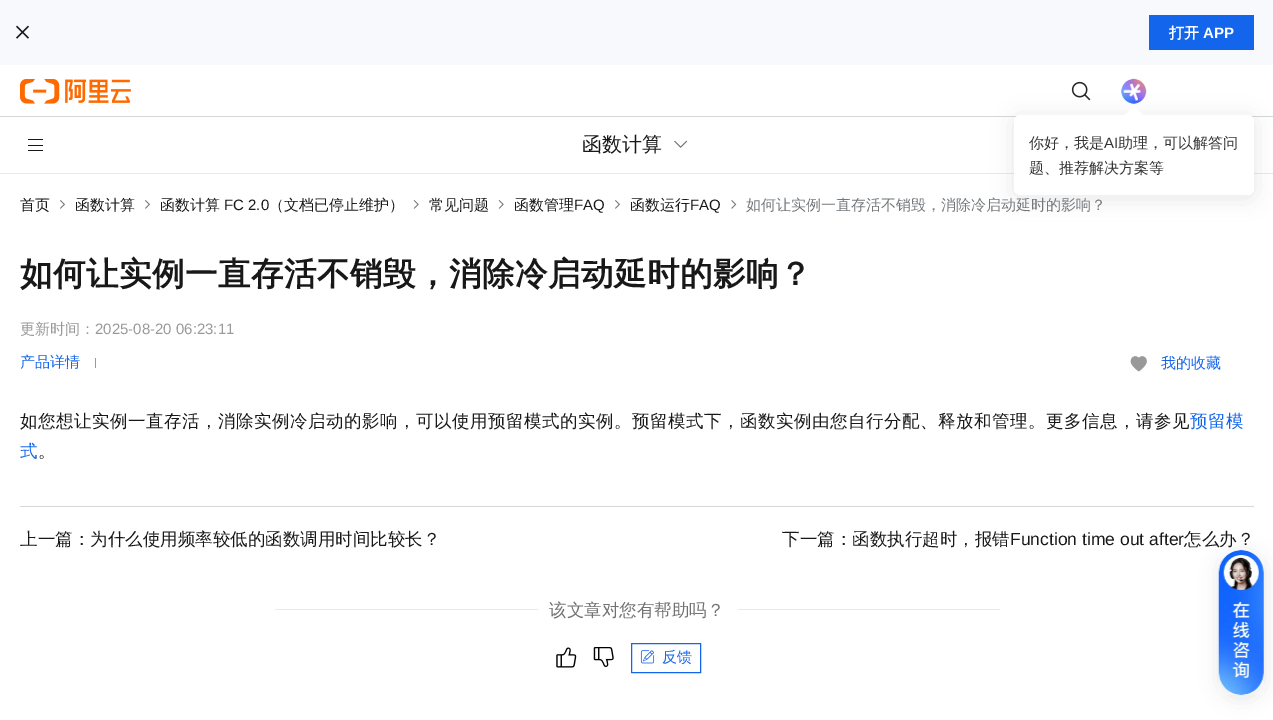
%!PS
<< /PageSize [1273 720] /PageUsesTransparency true >> setpagedevice
/mt/moveto load def
/li/lineto load def
/cp/closepath load def
/fl/fill load def
/co { dup -16 bitshift 255 div exch dup -8 bitshift 255 and 255 div exch 255 and 255 div setrgbcolor } def
/fn { [ exch dup neg 0 0 3 -1 roll 0 0 ] selectfont } def
/tx { co fn moveto show } def
/bx { co rectfill } def
/al { dup .setfillconstantalpha .setstrokeconstantalpha } def
/rr { 5 dict begin { /r /h /w /y /x } { exch def } forall
  x r add y moveto x w add y 2 copy h add r arct x w add y h add x 1 index r arct
  x y h add x y r arct x y 2 copy exch w add exch r arct closepath end } def
/sh { 12 dict begin { /a /b /q /h /w /y /x } { exch def } forall gsave /was 0 def
  9 -2 -9 { dup b mul 4 div /e exch def 1 sub .425 mul 2.718 exch exp 1 add a .99 .min exch div /now exch def
    1 1 now sub 1 was sub div sub al /was now def
    w h .min e 2 mul add 0 gt { x e sub y e sub w e 2 mul add h e 2 mul add
      q e add b .6 mul add w h .min 2 div e add .min 0 .max rr fill } if } for grestore end } def
/im { 5 dict begin { /h /w /y /x /name } { exch def } forall
  gsave x y translate w h scale
  w h 8 [w 0 0 h 0 0] name (r) file false 3 colorimage grestore end } def
0 .pushpdf14devicefilter
0 720 translate 1 -1 scale
4 setmiterlimit
0 0 1273 720 16#FFFFFF bx
0 0 1273 65 16#F7F9FC bx
(media/1.raw) 16 25 13 14 im
1149 15 105 35 16#1366EC bx
0 116 1273 1 16#D7D8D9 bx
(media/2.raw) 20 79 111 25 im
(media/3.raw) 1071 81 20 20 im
(media/4.raw) 1121 78 26 26 im
(media/5.raw) 1123 83 18 18 im
0 173 1273 1 16#E9E9E9 bx
16#000000 co
1014 118 240 80 6 11 .1 sh
16#FFFFFF co
1014 115 240 80 6 rr fl
1134 106 mt 1142.5 115 li 1134 124 li 1125 115 li cp fl
28 139 15 1 16#181818 bx
28 145 15 1 16#181818 bx
28 150 15 1 16#181818 bx
(media/6.raw) 674 140 13 8 im
(media/7.raw) 60 200 5 9 im
(media/7.raw) 145 200 5 9 im
(media/8.raw) 413 200 6 9 im
(media/8.raw) 498 200 6 9 im
(media/7.raw) 615 200 5 9 im
(media/9.raw) 731 200 6 9 im
95 358 1 10 16#999999 bx
(media/10.raw) 1130 356 17 16 im
20 506 1234 1 16#D7D8D9 bx
275 609 263 1 16#EAEAEA bx
738 609 262 1 16#EAEAEA bx
(media/11.raw) 556 647 21 21 im
(media/12.raw) 593 647 21 20 im
16#1366EC co
631.5 643.5 69 29 rectstroke
(media/13.raw) 640 650 15 14 im
16#000000 co
1219 553 45 145 22.5 9.5 .1 sh
(media/14.raw) 1218 550 46 145 im
(打开) 1169 38 /WenQuanYiZenHei-Bold 15 16#FFFFFF tx
(APP) 1203 38 /LiberationSans-Bold 15 16#FFFFFF tx
(你好，我是) 1029 148 /WenQuanYiZenHei-Medium 15 16#333333 tx
(AI) 1104 148 /LiberationSans-Regular 15 16#333333 tx
(助理，可以解答问) 1118 148 /WenQuanYiZenHei-Medium 15 16#333333 tx
(题、推荐解决方案等) 1029 173 /WenQuanYiZenHei-Medium 15 16#333333 tx
(函数计算) 582 151 /WenQuanYiZenHei-Medium 20 16#181818 tx
(首页) 20 210 /WenQuanYiZenHei-Medium 15 16#181818 tx
(函数计算) 75 210 /WenQuanYiZenHei-Medium 15 16#181818 tx
(函数计算) 160 210 /WenQuanYiZenHei-Medium 15 16#181818 tx
(FC 2.0) 224 210 /LiberationSans-Regular 15 16#181818 tx
(（文档已停止维护）) 269 210 /WenQuanYiZenHei-Medium 15 16#181818 tx
(常见问题) 429 210 /WenQuanYiZenHei-Medium 15 16#181818 tx
(函数管理) 514 210 /WenQuanYiZenHei-Medium 15 16#181818 tx
(FAQ) 574 210 /LiberationSans-Regular 15 16#181818 tx
(函数运行) 630 210 /WenQuanYiZenHei-Medium 15 16#181818 tx
(FAQ) 690 210 /LiberationSans-Regular 15 16#181818 tx
(如何让实例一直存活不销毁，消除冷启动延时的影响？) 746 210 /WenQuanYiZenHei-Medium 15 16#73777A tx
/WenQuanYiZenHei-Bold 32.5 fn
16#181818 co
20 285 mt .5 0 (如何让实例一直存活不销毁，消除冷启动延时的影响？) ashow
(更新时间：) 20 334 /WenQuanYiZenHei-Medium 15 16#999999 tx
(2025-08-20 06:23:11) 95 334 /LiberationSans-Regular 15 16#999999 tx
(产品详情) 20 367 /WenQuanYiZenHei-Medium 15 16#1366EC tx
(我的收藏) 1161 368 /WenQuanYiZenHei-Medium 15 16#1366EC tx
/WenQuanYiZenHei-Medium 17.5 fn
16#181818 co
20 427 mt .5 0 (如您想让实例一直存活，消除实例冷启动的影响，可以使用预留模式的实例。预留模式下，函数实例由您自行分配、释放和管理。更多信息，请参见) ashow
16#1366EC co
1190 427 mt .5 0 (预留模) ashow
20 457 mt .5 0 (式) ashow
16#181818 co
38 457 mt .5 0 (。) ashow
(上一篇：为什么使用频率较低的函数调用时间比较长？) 20 545 /WenQuanYiZenHei-Medium 17.5 16#181818 tx
(下一篇：函数执行超时，报错) 782 545 /WenQuanYiZenHei-Medium 17.5 16#181818 tx
(Function time out after) 1010 545 /LiberationSans-Regular 17.5 16#181818 tx
(怎么办？) 1184 545 /WenQuanYiZenHei-Medium 17.5 16#181818 tx
(该文章对您有帮助吗？) 549 616 /WenQuanYiZenHei-Medium 17.5 16#717171 tx
(反馈) 662 662 /WenQuanYiZenHei-Medium 15 16#1366EC tx
.poppdf14devicefilter showpage
